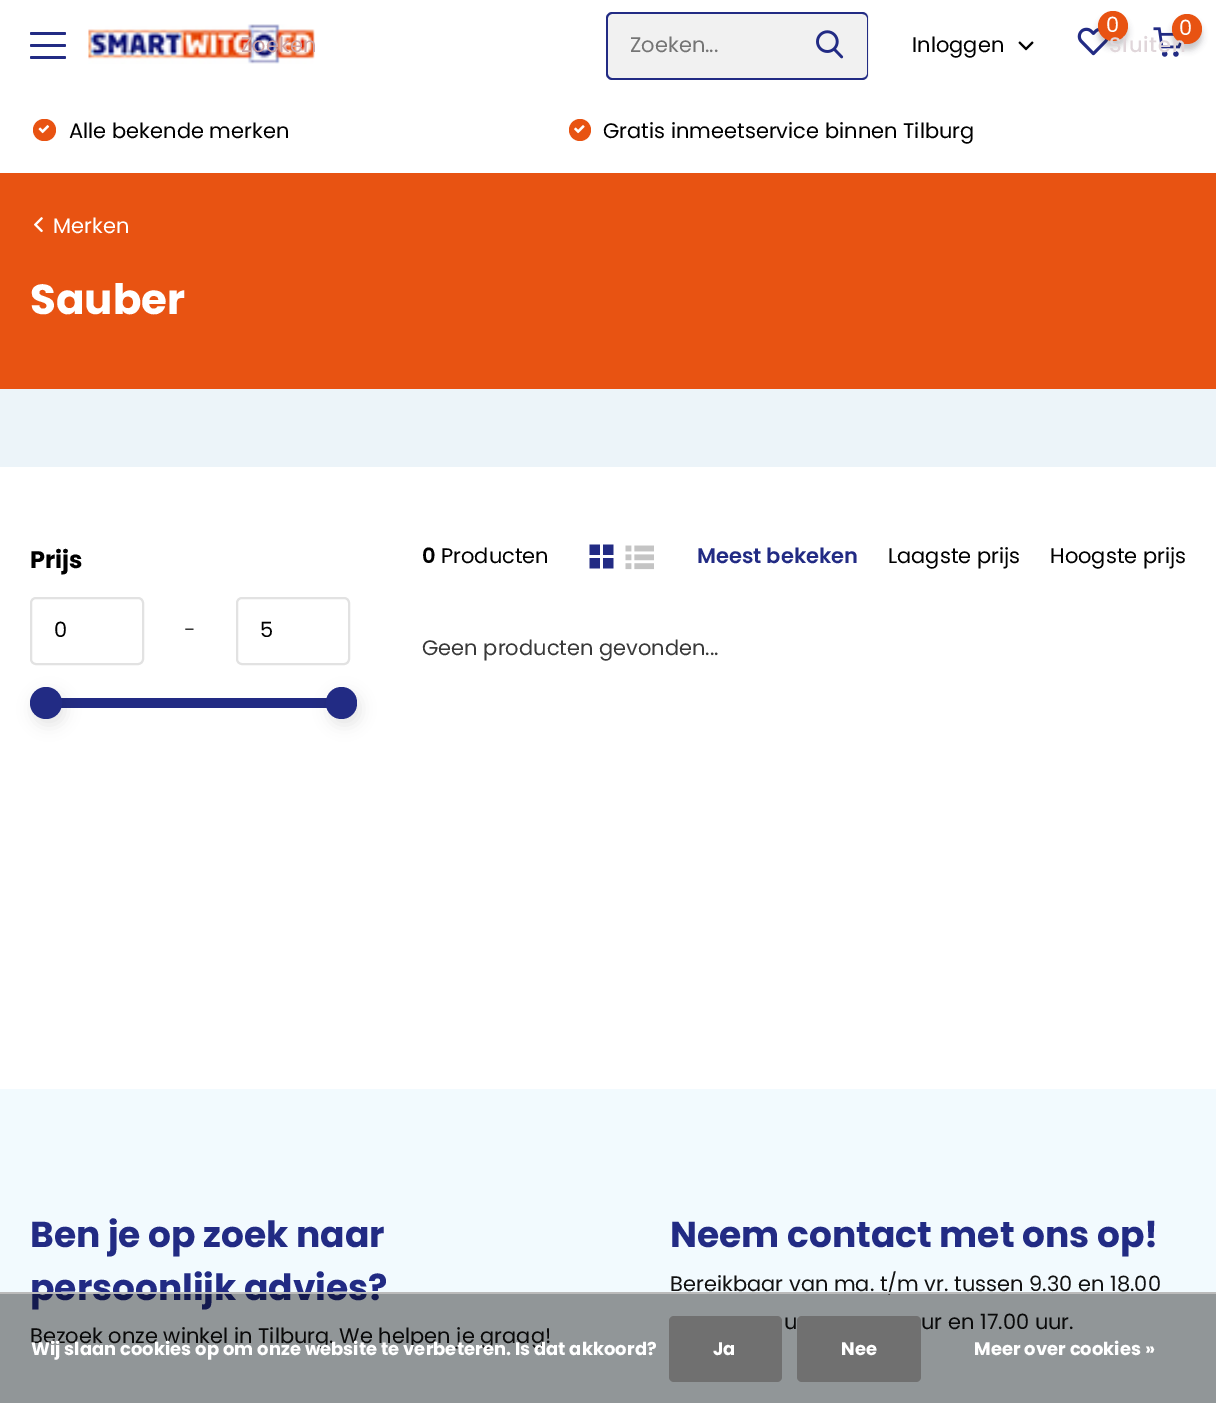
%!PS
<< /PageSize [1216 1403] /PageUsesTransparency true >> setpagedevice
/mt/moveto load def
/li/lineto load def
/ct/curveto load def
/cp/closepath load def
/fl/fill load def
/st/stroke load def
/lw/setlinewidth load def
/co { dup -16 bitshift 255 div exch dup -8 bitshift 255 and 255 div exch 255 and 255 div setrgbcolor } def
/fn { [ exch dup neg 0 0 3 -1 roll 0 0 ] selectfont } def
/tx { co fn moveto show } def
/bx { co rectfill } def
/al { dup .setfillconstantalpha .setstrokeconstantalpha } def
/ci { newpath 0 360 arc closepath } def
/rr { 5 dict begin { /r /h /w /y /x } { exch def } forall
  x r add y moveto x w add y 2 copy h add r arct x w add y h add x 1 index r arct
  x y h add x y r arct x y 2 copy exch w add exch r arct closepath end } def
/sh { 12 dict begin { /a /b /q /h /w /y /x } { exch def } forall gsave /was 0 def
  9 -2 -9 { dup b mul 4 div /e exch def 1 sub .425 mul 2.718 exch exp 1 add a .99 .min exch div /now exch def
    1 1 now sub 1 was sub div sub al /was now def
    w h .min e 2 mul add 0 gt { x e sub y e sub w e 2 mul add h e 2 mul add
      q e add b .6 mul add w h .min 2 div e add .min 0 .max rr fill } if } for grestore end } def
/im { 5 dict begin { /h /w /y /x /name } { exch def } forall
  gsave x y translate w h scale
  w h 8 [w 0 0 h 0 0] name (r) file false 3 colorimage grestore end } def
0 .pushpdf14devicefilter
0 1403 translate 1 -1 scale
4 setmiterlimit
0 0 1216 1403 16#FFFFFF bx
16#222B84 co
30 32 36 3 1.5 rr fl
30 44 36 3 1.5 rr fl
30 56 36 3 1.5 rr fl
(media/1.raw) 88 24 227 40 im
(media/2.raw) 1077 27 32 29 im
16#282830 co
1098 17 30 30 15 3 .25 sh
16#E85312 co
1113 26 15 ci fl
(media/3.raw) 1153 27 29 30 im
16#282830 co
1172 20 30 30 15 3 .25 sh
16#E85312 co
1187 29 15 ci fl
16#F1F1F1 co
612 12 mt 794 12 li 794 80 li 612 80 li 608.5 80 606 77.5 606 74 ct 606 18 li 606 14.5 608.5 12 612 12 ct cp fl
16#222B84 co
612 12 mt 794 12 li 794 80 li 612 80 li 609 80 606 77 606 74 ct 606 18 li 606 15 609 12 612 12 ct cp 612 14 mt 794 14 li 794 78 li 612 78 li 610 78 608 76 608 74 ct 608 18 li 608 16 610 14 612 14 ct cp eofill
16#F1F1F1 co
794 12 mt 863 12 li 866.5 12 869 14.5 869 18 ct 869 74 li 869 77.5 866.5 80 863 80 ct 794 80 li cp fl
16#222B84 co
794 12 mt 862 12 li 866 12 868 15 868 18 ct 868 74 li 868 77 866 80 862 80 ct 794 80 li cp 794 14 mt 862 14 li 865 14 867 16 867 18 ct 867 74 li 867 76 865 78 862 78 ct 794 78 li cp eofill
(media/4.raw) 816 30 28 29 im
(media/5.raw) 1018 41 16 10 im
16#E85312 co
33 119 23 22 11 rr fl
(media/6.raw) 38 125 12 9 im
580 130 11 ci fl
(media/7.raw) 574 125 11 9 im
0 173 1216 216 16#E85312 bx
(media/8.raw) 34 217 9 16 im
0 389 1216 78 16#ECF4F9 bx
16#E2E2E2 co
2 lw
31 598 112 66 5 rr st
237 598 112 66 5 rr st
61 698 266 10 16#222B84 bx
16#000000 co
33 693 32 32 16 7.5 .1 sh
16#222B84 co
46 703 16 ci fl
16#000000 co
329 693 31 32 15.5 7.5 .1 sh
16#222B84 co
326 687 31 32 15.5 rr fl
(media/9.raw) 589 544 25 25 im
(media/10.raw) 625 545 29 25 im
0 1089 1216 314 16#F2FAFE bx
(0) 1106 32 /Poppins-Regular 21 16#FFFFFF tx
(0) 1179 35 /Poppins-Regular 21 16#FFFFFF tx
(Zoeken...) 630 52 /Poppins-Regular 21 16#757575 tx
(Inloggen) 912 52 /Poppins-Regular 21 16#000000 tx
(Zoeken) 241 52 /Poppins-Regular 21 16#CCA3A5 tx
/Poppins-Medium 21 fn
16#E0D6DA co
1109 52 mt .75 0 (Sluiten) ashow
(Alle bekende merken) 69 138 /Poppins-Regular 21 16#000000 tx
(Gratis inmeetservice binnen Tilburg) 603 138 /Poppins-Regular 21 16#000000 tx
(Merken) 53 233 /Poppins-Regular 21 16#FFFFFF tx
(Sauber) 30 314 /Poppins-Bold 42 16#FFFFFF tx
(Prijs) 30 568 /Poppins-Bold 24 16#000000 tx
(0) 54 637 /Poppins-Regular 21 16#000000 tx
(-) 184 637 /Poppins-Regular 21 16#393939 tx
(5) 260 637 /Poppins-Regular 21 16#000000 tx
(0) 422 563 /Poppins-SemiBold 21 16#000000 tx
(Producten) 441 563 /Poppins-Regular 21 16#000000 tx
(Meest bekeken) 697 563 /Poppins-SemiBold 21 16#222B84 tx
(Laagste prijs) 888 563 /Poppins-Regular 21 16#000000 tx
(Hoogste prijs) 1050 563 /Poppins-Regular 21 16#000000 tx
(Geen producten gevonden...) 422 655 /Poppins-Regular 21 16#393939 tx
(Ben je op zoek naar) 30 1247 /Poppins-Bold 36 16#222B84 tx
(persoonlijk advies?) 30 1300 /Poppins-Bold 36 16#222B84 tx
(Bezoek onze winkel in Tilburg. We helpen je graag!) 30 1343 /Poppins-Regular 21 16#111111 tx
(Neem contact met ons op!) 670 1247 /Poppins-Bold 36 16#222B84 tx
(Bereikbaar van ma. t/m vr. tussen 9.30 en 18.00) 670 1291 /Poppins-Regular 21 16#111111 tx
(u) 784 1329 /Poppins-Regular 21 16#111111 tx
(ur en 17.00 uur.) 921 1329 /Poppins-Regular 21 16#111111 tx
0.4 al
0 1294 1216 109 16#000000 bx
1 al
0 1292 1216 2 16#BBBBBB bx
(Wij slaan cookies op om onze website te verbeteren. Is dat akkoord?) 31 1355 /Poppins-Bold 18 16#FFFFFF tx
16#707070 co
669 1316 113 66 5 rr fl
(Ja) 713 1355 /Poppins-Bold 18 16#FFFFFF tx
16#707070 co
797 1316 124 66 5 rr fl
(Nee) 841 1355 /Poppins-Bold 18 16#FFFFFF tx
(Meer over cookies ») 974 1355 /Poppins-Bold 18 16#FFFFFF tx
.poppdf14devicefilter showpage
